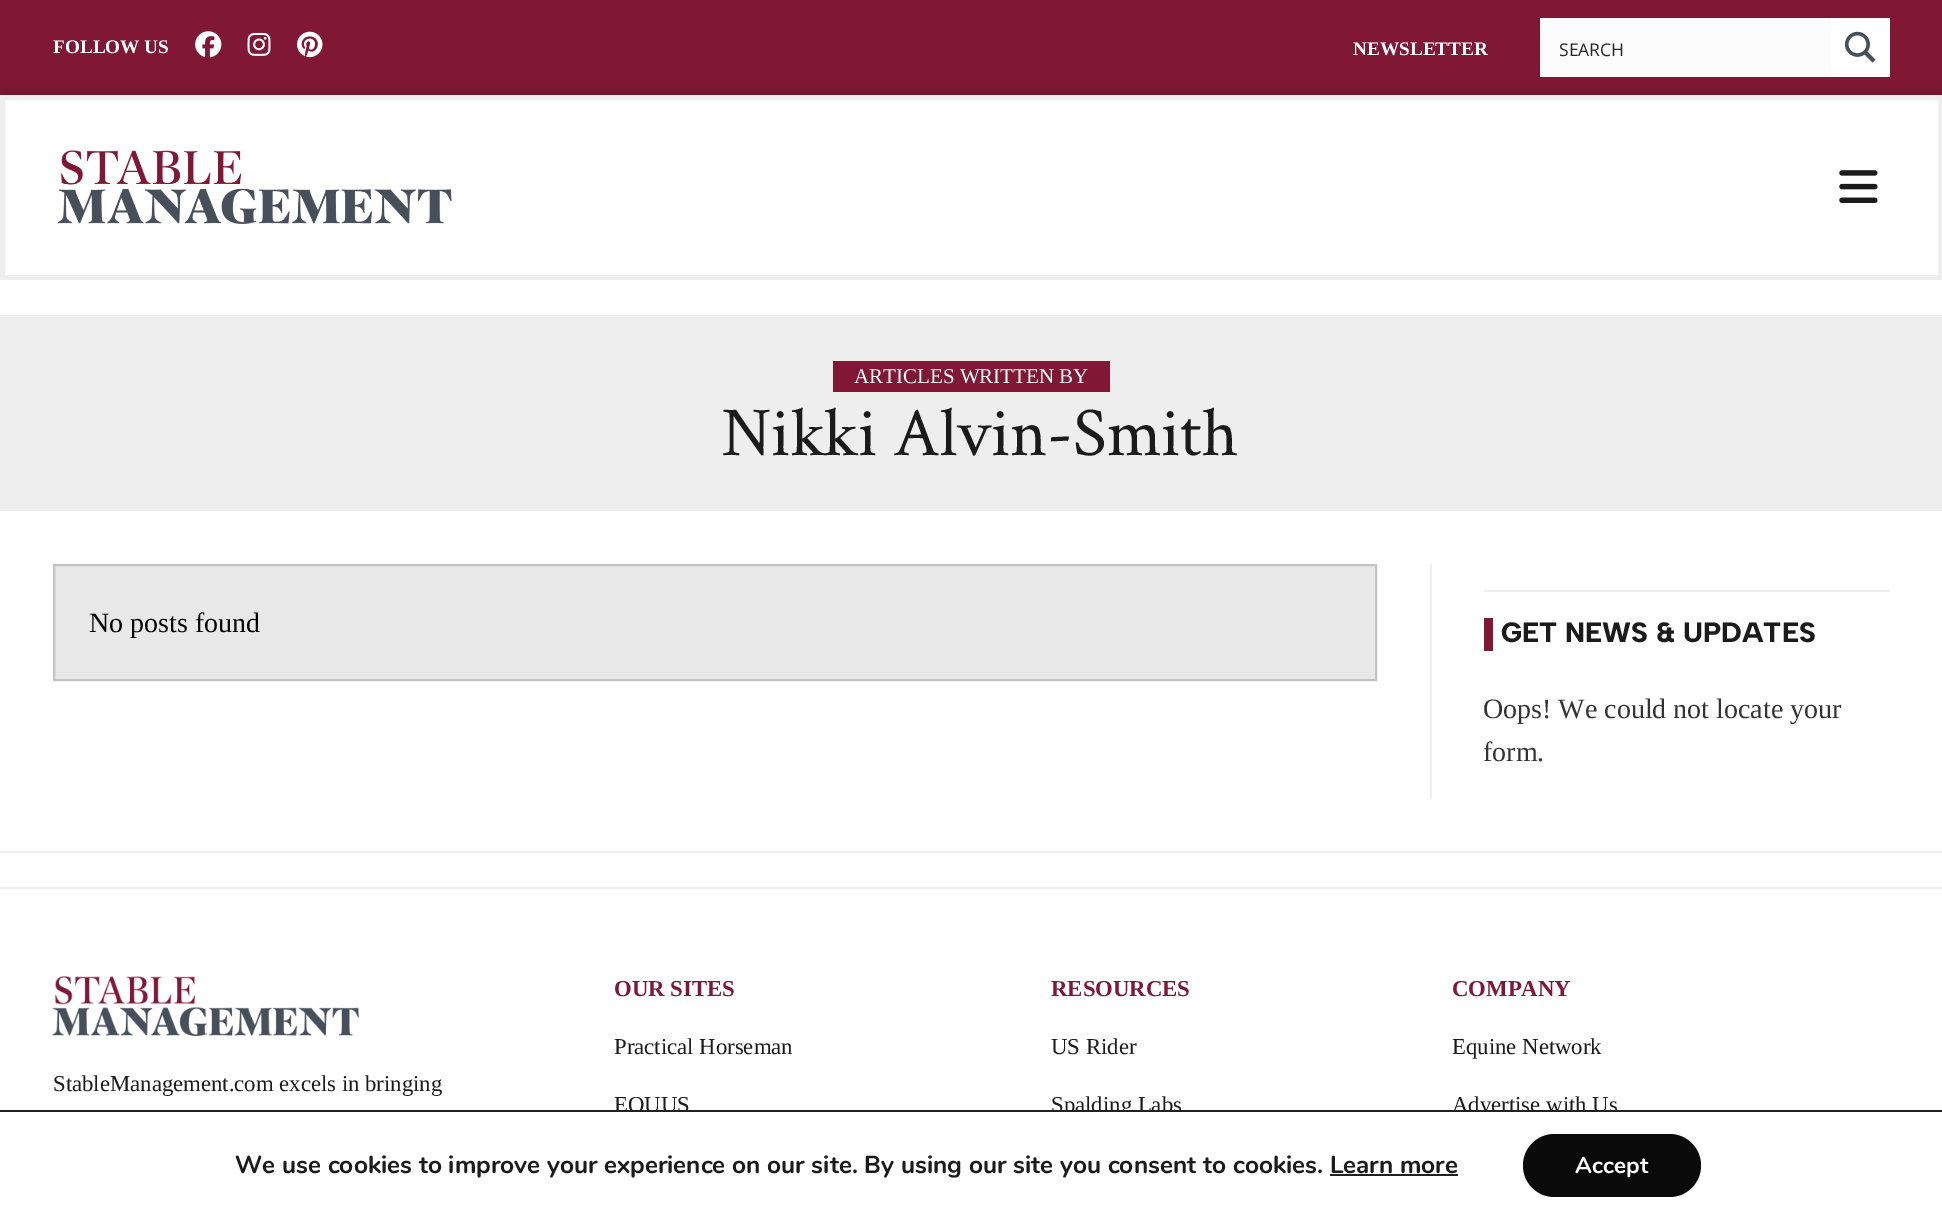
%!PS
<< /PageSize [1942 1219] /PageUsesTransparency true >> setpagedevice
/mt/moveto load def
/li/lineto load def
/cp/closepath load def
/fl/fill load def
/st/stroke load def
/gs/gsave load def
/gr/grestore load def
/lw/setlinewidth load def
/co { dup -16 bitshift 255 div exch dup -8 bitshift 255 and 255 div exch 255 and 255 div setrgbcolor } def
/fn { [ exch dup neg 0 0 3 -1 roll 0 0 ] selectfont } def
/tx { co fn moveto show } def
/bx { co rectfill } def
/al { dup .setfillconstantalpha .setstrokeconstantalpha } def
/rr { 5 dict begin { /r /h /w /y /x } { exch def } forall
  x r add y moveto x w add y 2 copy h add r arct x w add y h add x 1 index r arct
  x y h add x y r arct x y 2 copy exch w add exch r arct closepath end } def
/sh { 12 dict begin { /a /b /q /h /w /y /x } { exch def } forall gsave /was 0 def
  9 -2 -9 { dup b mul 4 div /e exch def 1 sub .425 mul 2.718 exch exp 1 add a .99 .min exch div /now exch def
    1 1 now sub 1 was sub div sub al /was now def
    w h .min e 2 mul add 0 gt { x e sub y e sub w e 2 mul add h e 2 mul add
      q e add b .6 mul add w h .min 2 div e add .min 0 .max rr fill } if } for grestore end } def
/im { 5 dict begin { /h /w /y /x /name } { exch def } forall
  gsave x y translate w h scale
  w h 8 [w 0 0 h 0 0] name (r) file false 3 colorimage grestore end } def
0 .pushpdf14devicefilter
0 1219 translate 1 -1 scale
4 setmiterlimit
0 0 1942 1219 16#801735 bx
(media/1.raw) 195 31 27 27 im
(media/2.raw) 247 32 24 24 im
(media/3.raw) 297 31 26 27 im
1540 18 291 59 16#FCFCFC bx
1831 18 59 59 16#FFFFFF bx
(media/4.raw) 1844 31 32 32 im
16#000000 co
0 95 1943 185 0 9 .15 sh
16#FFFFFF co
2.5 97.5 mt 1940.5 97.5 li 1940.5 277.5 li 2.5 277.5 li cp gs fl gr
16#EEEEEE co
5 lw
st
(media/5.raw) 57 150 395 74 im
(media/6.raw) 1839 170 39 33 im
0 280 1942 35 16#FFFFFF bx
0 315 1942 196 16#EEEEEE bx
833 361 277 31 16#801735 bx
0 511 1942 340 16#FFFFFF bx
1430 564 2 234 16#EEEEEE bx
16#E8E8E8 co
54 565 mt 1376 565 li 1376 680 li 54 680 li cp gs fl gr
16#C4C4C4 co
2 lw
st
1484 590 406 2 16#EEEEEE bx
1484 618 9 33 16#801735 bx
0 853 1942 34 16#FFFFFF bx
0 851 1942 2 16#EEEEEE bx
0 887 1942 2 16#EEEEEE bx
0 889 1942 221 16#FFFFFF bx
(media/7.raw) 52 976 307 60 im
(FOLLOW US) 53 53 /LiberationSerif-Bold 19.25 16#FFFFFF tx
(NEWSLETTER) 1353 55 /LiberationSerif-Bold 19.25 16#FFFFFF tx
(SEARCH) 1559 56 /OpenSans-Regular 17.5 16#262626 tx
(ARTICLES WRITTEN BY) 854 383 /LiberationSerif-Regular 21 16#FFFFFF tx
(Nikki Alvin-Smith) 722 455 /CrimsonText-Regular 70 16#1B1B1B tx
(No posts found) 89 632 /LiberationSerif-Regular 28 16#000000 tx
(GET NEWS & UPDATES) 1501 642 /AlbertSans-ExtraBold 28 16#1B1B1B tx
(Oops! We could not locate your) 1483 718 /LiberationSerif-Regular 28 16#333333 tx
(form.) 1483 761 /LiberationSerif-Regular 28 16#333333 tx
(StableManagement.com excels in bringing) 53 1091 /LiberationSerif-Regular 22.75 16#1B1B1B tx
(OUR SITES) 614 996 /LiberationSerif-Bold 22.75 16#801735 tx
(Practical Horseman) 614 1054 /LiberationSerif-Regular 22.75 16#1B1B1B tx
(EQUUS) 614 1112 /LiberationSerif-Regular 22.75 16#1B1B1B tx
(RESOURCES) 1051 996 /LiberationSerif-Bold 22.75 16#801735 tx
(US Rider) 1051 1054 /LiberationSerif-Regular 22.75 16#1B1B1B tx
(Spalding Labs) 1051 1112 /LiberationSerif-Regular 22.75 16#1B1B1B tx
(COMPANY) 1452 996 /LiberationSerif-Bold 22.75 16#801735 tx
(Equine Network) 1452 1054 /LiberationSerif-Regular 22.75 16#1B1B1B tx
(Advertise with Us) 1452 1112 /LiberationSerif-Regular 22.75 16#1B1B1B tx
0 1112 1942 107 16#FFFFFF bx
0 1110 1942 2 16#202020 bx
(We use cookies to improve your experience on our site. By using our site you consent to cookies. Learn more) 235 1173 /Nunito-Bold 24.5 16#1B1B1B tx
1330 1174 128 2 16#202020 bx
16#0A0A0A co
1523 1134 178 63 31.5 rr fl
(Accept) 1575 1173 /Nunito-Bold 22.75 16#FFFFFF tx
.poppdf14devicefilter showpage
